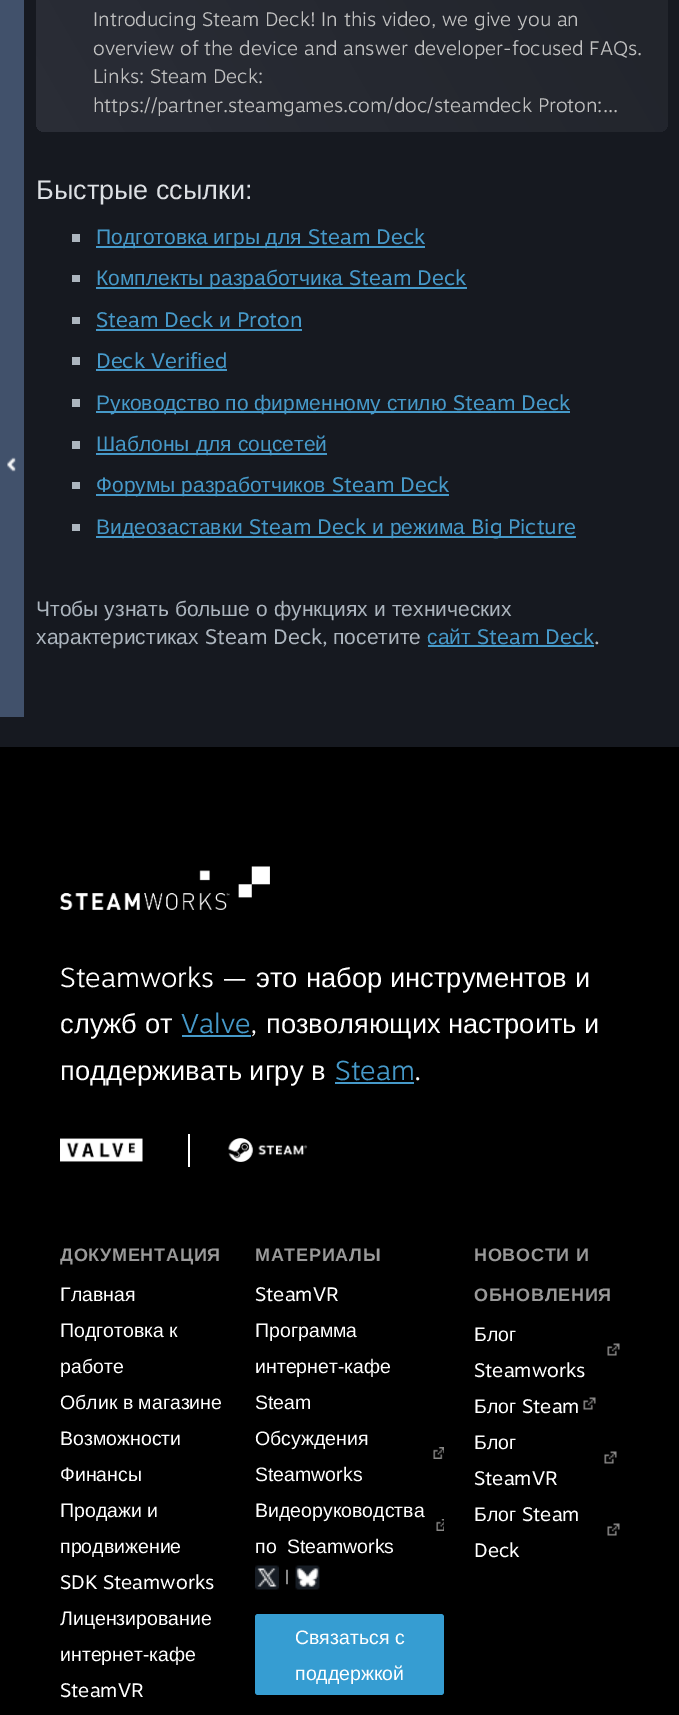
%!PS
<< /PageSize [679 1715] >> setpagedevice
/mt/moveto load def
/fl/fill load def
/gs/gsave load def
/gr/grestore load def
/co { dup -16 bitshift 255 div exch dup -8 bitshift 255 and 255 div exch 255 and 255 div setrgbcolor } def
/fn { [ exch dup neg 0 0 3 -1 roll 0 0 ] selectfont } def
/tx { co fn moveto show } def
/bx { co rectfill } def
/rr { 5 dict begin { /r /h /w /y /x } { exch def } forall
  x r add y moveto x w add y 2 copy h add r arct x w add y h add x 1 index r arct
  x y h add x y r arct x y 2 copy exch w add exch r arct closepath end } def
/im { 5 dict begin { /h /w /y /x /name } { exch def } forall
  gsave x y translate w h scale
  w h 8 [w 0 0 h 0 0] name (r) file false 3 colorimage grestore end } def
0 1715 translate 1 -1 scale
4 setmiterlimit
0 0 679 1715 16#161920 bx
0 0 24 717 16#41516B bx
(media/1.raw) 7 457 9 15 im
gs 36 -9 632 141 9 rr clip newpath
<< /ShadingType 2 /ColorSpace /DeviceRGB /Coords [60 173 644 -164] /Extend [true true] /Function << /FunctionType 3 /Domain [0 1] /Functions [<< /FunctionType 2 /Domain [0 1] /C0 [.165 .176 .212] /C1 [.165 .176 .212] /N 1 >> << /FunctionType 2 /Domain [0 1] /C0 [.165 .176 .212] /C1 [.133 .145 .169] /N 1 >> << /FunctionType 2 /Domain [0 1] /C0 [.133 .145 .169] /C1 [.133 .145 .169] /N 1 >>] /Bounds [.05 .95] /Encode [0 1 0 1 0 1] >> >> shfill gr
72 234 8 8 16#ACB5BE bx
96 246 329 2 16#4699C9 bx
72 275 8 7 16#ACB5BE bx
96 287 371 2 16#4699C9 bx
72 317 8 7 16#ACB5BE bx
96 329 206 2 16#4699C9 bx
72 357 8 8 16#ACB5BE bx
96 369 131 2 16#4699C9 bx
72 399 8 8 16#ACB5BE bx
96 411 474 2 16#4699C9 bx
72 441 8 8 16#ACB5BE bx
96 453 231 2 16#4699C9 bx
72 482 8 7 16#ACB5BE bx
96 494 353 2 16#4699C9 bx
72 524 8 7 16#ACB5BE bx
96 536 480 2 16#4699C9 bx
428 645 166 2 16#4699C9 bx
0 747 679 968 16#000000 bx
(media/2.raw) 60 866 210 44 im
182 1035 69 2 16#4699C9 bx
335 1082 79 2 16#4699C9 bx
(media/3.raw) 60 1138 83 24 im
188 1134 2 33 16#FFFFFF bx
(media/4.raw) 228 1138 80 24 im
(media/5.raw) 433 1447 11 12 im
(media/6.raw) 436 1519 8 12 im
(media/7.raw) 255 1565 24 25 im
(media/8.raw) 295 1565 25 25 im
16#369DD2 co
255 1614 189 81 3 rr fl
(media/9.raw) 607 1343 13 13 im
(media/9.raw) 583 1397 13 13 im
(media/9.raw) 604 1451 13 13 im
(media/9.raw) 607 1523 13 13 im
(Introducing Steam Deck! In this video, we give you an) 93 26 /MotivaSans-Light 19.5 16#C0C0C0 tx
(overview of the device and answer developer-focused FAQs.) 93 55 /MotivaSans-Light 19.5 16#C0C0C0 tx
(Links: Steam Deck:) 93 83 /MotivaSans-Light 19.5 16#C0C0C0 tx
(https://partner.steamgames.com/doc/steamdeck Proton:...) 93 112 /MotivaSans-Light 19.5 16#C0C0C0 tx
(Быстрые ссылки:) 36 199 /LiberationSans-Regular 27 16#DDE0E4 tx
(Подготовка игры для) 96 244 /LiberationSans-Regular 21 16#4699C9 tx
(Steam Deck) 308 244 /MotivaSans-Regular 21 16#4699C9 tx
(Комплекты разработчика) 96 285 /LiberationSans-Regular 21 16#4699C9 tx
(Steam Deck) 349 285 /MotivaSans-Regular 21 16#4699C9 tx
(Steam Deck) 96 327 /MotivaSans-Regular 21 16#4699C9 tx
(и) 219 327 /LiberationSans-Regular 21 16#4699C9 tx
(Proton) 237 327 /MotivaSans-Regular 21 16#4699C9 tx
(Deck Verified) 96 368 /MotivaSans-Regular 21 16#4699C9 tx
(Руководство по фирменному стилю) 96 410 /LiberationSans-Regular 21 16#4699C9 tx
(Steam Deck) 453 410 /MotivaSans-Regular 21 16#4699C9 tx
/LiberationSans-Regular 21 fn
96 451 mt .25 0 32 (Шаблоны для соцсетей) widthshow
(Форумы разработчиков) 96 492 /LiberationSans-Regular 21 16#4699C9 tx
(Steam Deck) 332 492 /MotivaSans-Regular 21 16#4699C9 tx
(Видеозаставки) 96 534 /LiberationSans-Regular 21 16#4699C9 tx
(Steam Deck) 249 534 /MotivaSans-Regular 21 16#4699C9 tx
(и режима) 372 534 /LiberationSans-Regular 21 16#4699C9 tx
(Big Picture) 471 534 /MotivaSans-Regular 21 16#4699C9 tx
/LiberationSans-Regular 21 fn
16#ACB5BE co
36 616 mt .25 0 32 (Чтобы узнать больше о функциях и технических) widthshow
(характеристиках) 36 644 /LiberationSans-Regular 21 16#ACB5BE tx
(Steam Deck,) 205 644 /MotivaSans-Regular 21 16#ACB5BE tx
(посетите) 333 644 /LiberationSans-Regular 21 16#ACB5BE tx
(сайт) 427 644 /LiberationSans-Regular 21 16#4699C9 tx
(Steam Deck) 477 644 /MotivaSans-Regular 21 16#4699C9 tx
(.) 594 644 /MotivaSans-Regular 21 16#ACB5BE tx
(Steamworks —) 60 987 /MotivaSans-Light 27.25 16#FFFFFF tx
(это) 256 987 /LiberationSans-Regular 27.25 16#FFFFFF tx
(набор) 306 987 /LiberationSans-Regular 27.25 16#FFFFFF tx
(инструментов) 390 987 /LiberationSans-Regular 27.25 16#FFFFFF tx
(и) 575 987 /LiberationSans-Regular 27.25 16#FFFFFF tx
(служб от) 60 1033 /LiberationSans-Regular 27.25 16#FFFFFF tx
(Valve) 181 1033 /MotivaSans-Light 27.25 16#4699C9 tx
(,) 250 1033 /MotivaSans-Light 27.25 16#FFFFFF tx
(позволяющих настроить и) 266 1033 /LiberationSans-Regular 27.25 16#FFFFFF tx
(поддерживать игру в) 60 1080 /LiberationSans-Regular 27.25 16#FFFFFF tx
(Steam) 335 1080 /MotivaSans-Light 27.25 16#4699C9 tx
(.) 414 1080 /MotivaSans-Light 27.25 16#FFFFFF tx
/LiberationSans-Bold 18 fn
16#999999 co
60 1261 mt .75 0 (ДОКУМЕНТАЦИЯ) ashow
(Главная) 60 1301 /LiberationSans-Regular 19.5 16#FFFFFF tx
(Подготовка к) 60 1337 /LiberationSans-Regular 19.5 16#FFFFFF tx
(работе) 60 1373 /LiberationSans-Regular 19.5 16#FFFFFF tx
(Облик в магазине) 60 1409 /LiberationSans-Regular 19.5 16#FFFFFF tx
(Возможности) 60 1445 /LiberationSans-Regular 19.5 16#FFFFFF tx
(Финансы) 60 1481 /LiberationSans-Regular 19.5 16#FFFFFF tx
(Продажи и) 60 1517 /LiberationSans-Regular 19.5 16#FFFFFF tx
(продвижение) 60 1553 /LiberationSans-Regular 19.5 16#FFFFFF tx
(SDK Steamworks) 60 1589 /MotivaSans-Regular 19.5 16#FFFFFF tx
(Лицензирование) 60 1625 /LiberationSans-Regular 19.5 16#FFFFFF tx
(интернет-кафе) 60 1661 /LiberationSans-Regular 19.5 16#FFFFFF tx
(SteamVR) 60 1697 /MotivaSans-Regular 19.5 16#FFFFFF tx
/LiberationSans-Bold 18 fn
16#999999 co
255 1261 mt .75 0 (МАТЕРИАЛЫ) ashow
(SteamVR) 255 1301 /MotivaSans-Regular 19.5 16#FFFFFF tx
(Программа) 255 1337 /LiberationSans-Regular 19.5 16#FFFFFF tx
(интернет-кафе) 255 1373 /LiberationSans-Regular 19.5 16#FFFFFF tx
(Steam) 255 1409 /LiberationSans-Regular 19.5 16#FFFFFF tx
(Обсуждения) 255 1445 /LiberationSans-Regular 19.5 16#FFFFFF tx
(Steamworks) 255 1481 /LiberationSans-Regular 19.5 16#FFFFFF tx
(Видеоруководства) 255 1517 /LiberationSans-Regular 19.5 16#FFFFFF tx
255 1553 mt 5 0 32 (по Steamworks) widthshow
(|) 285 1583 /MotivaSans-Regular 16 16#FFFFFF tx
(Связаться с) 295 1644 /LiberationSans-Regular 19.5 16#FFFFFF tx
(поддержкой) 295 1680 /LiberationSans-Regular 19.5 16#FFFFFF tx
/LiberationSans-Bold 18 fn
16#999999 co
474 1261 mt .75 0 (НОВОСТИ И) ashow
474 1301 mt .75 0 (ОБНОВЛЕНИЯ) ashow
(Блог) 474 1341 /LiberationSans-Regular 19.5 16#FFFFFF tx
(Steamworks) 474 1377 /MotivaSans-Regular 19.5 16#FFFFFF tx
(Блог) 474 1413 /LiberationSans-Regular 19.5 16#FFFFFF tx
(Steam) 522 1413 /MotivaSans-Regular 19.5 16#FFFFFF tx
(Блог) 474 1449 /LiberationSans-Regular 19.5 16#FFFFFF tx
(SteamVR) 474 1485 /MotivaSans-Regular 19.5 16#FFFFFF tx
(Блог) 474 1521 /LiberationSans-Regular 19.5 16#FFFFFF tx
(Steam) 522 1521 /MotivaSans-Regular 19.5 16#FFFFFF tx
(Deck) 474 1557 /MotivaSans-Regular 19.5 16#FFFFFF tx
showpage
